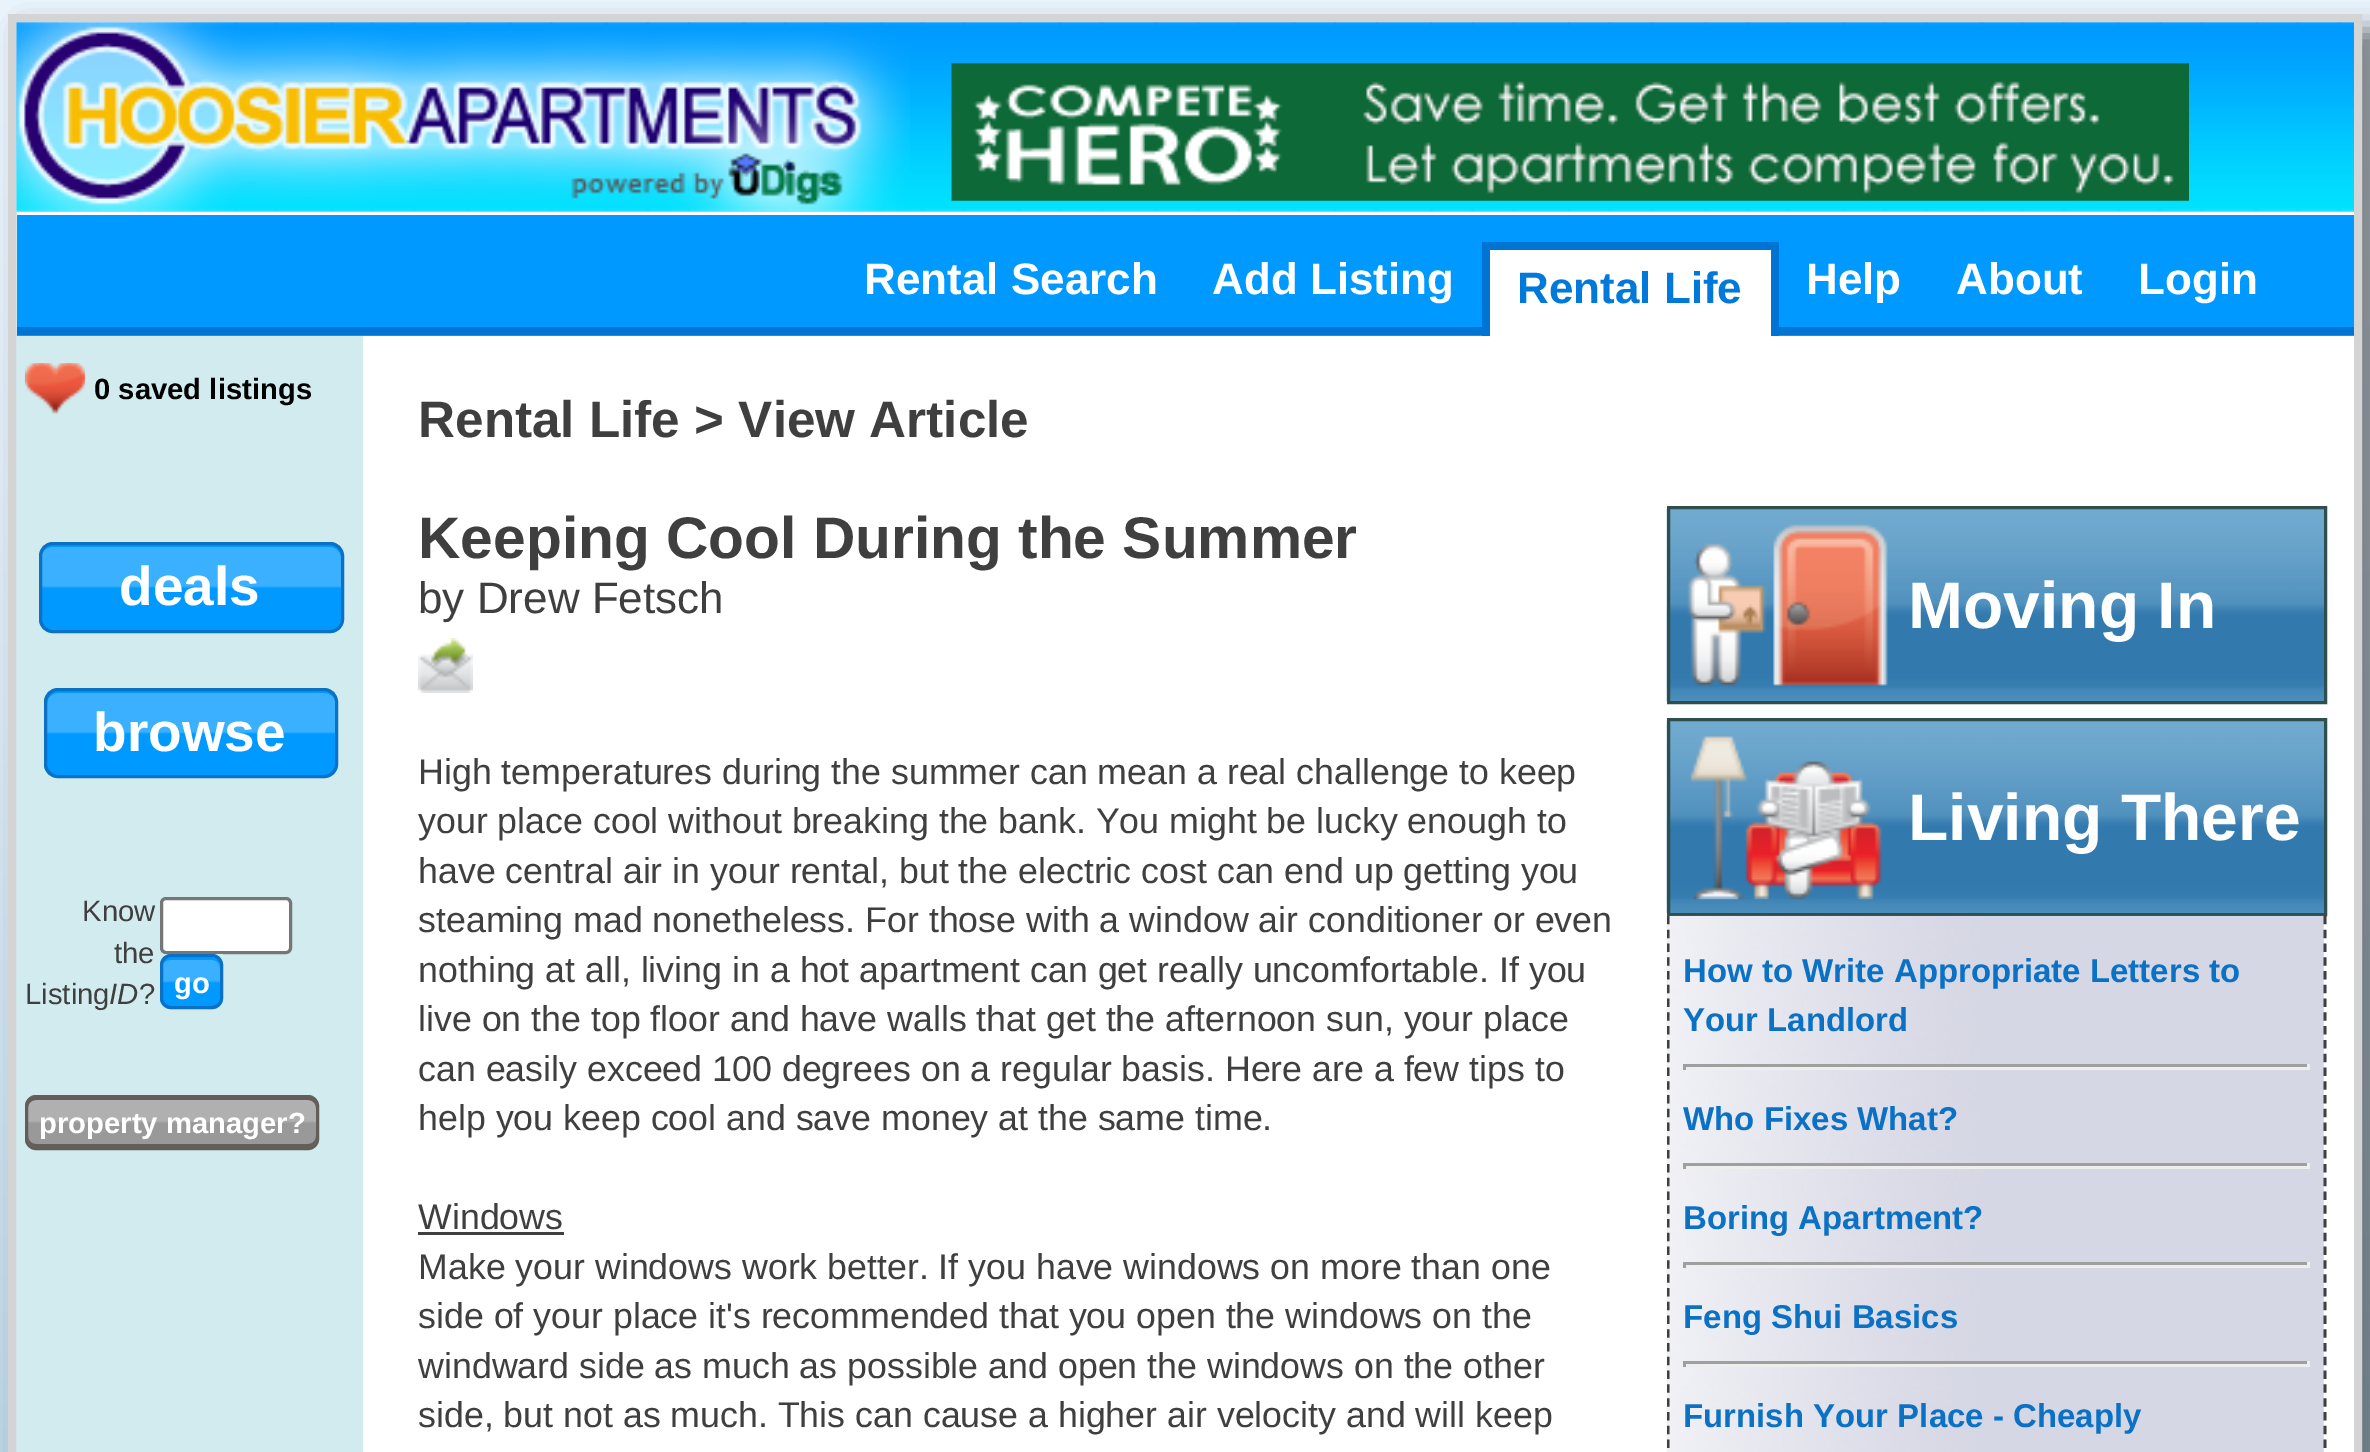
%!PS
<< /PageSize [2370 1452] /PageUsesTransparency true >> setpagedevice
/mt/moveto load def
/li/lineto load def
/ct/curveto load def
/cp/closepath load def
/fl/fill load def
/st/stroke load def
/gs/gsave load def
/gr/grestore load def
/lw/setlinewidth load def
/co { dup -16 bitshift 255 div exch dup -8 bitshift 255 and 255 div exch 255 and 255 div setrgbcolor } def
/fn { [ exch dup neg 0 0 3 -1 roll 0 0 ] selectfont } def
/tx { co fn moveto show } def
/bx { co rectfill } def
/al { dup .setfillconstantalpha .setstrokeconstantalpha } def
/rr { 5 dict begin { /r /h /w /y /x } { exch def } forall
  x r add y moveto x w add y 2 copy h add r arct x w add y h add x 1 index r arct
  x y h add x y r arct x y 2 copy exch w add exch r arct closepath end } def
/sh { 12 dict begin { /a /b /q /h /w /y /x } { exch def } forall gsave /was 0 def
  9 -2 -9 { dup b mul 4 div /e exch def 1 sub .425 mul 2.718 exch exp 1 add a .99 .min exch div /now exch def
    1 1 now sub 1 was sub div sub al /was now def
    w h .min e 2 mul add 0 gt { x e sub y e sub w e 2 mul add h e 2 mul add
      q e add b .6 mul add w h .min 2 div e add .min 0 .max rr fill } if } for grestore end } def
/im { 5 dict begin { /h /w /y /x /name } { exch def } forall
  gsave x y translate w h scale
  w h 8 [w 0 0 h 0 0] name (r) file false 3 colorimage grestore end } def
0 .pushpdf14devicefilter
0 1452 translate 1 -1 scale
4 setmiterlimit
0 0 2370 1452 16#FFFFFF bx
(media/1.raw) 0 0 2370 1452 im
16#000000 co
25 30 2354 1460 0 12.5 .5 sh
16#D1EBEF co
12 18 mt 2358 18 li 2358 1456 li 12 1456 li cp gs fl gr
16#D4D4D4 co
8 lw
st
(media/2.raw) 16 22 2338 191 im
17 212 2337 3 16#FFFFFF bx
(media/3.raw) 16 22 894 190 im
(media/4.raw) 951 63 1238 138 im
17 215 2337 121 16#0099FF bx
17 327 2337 8 16#0074D2 bx
1490 250 281 86 16#FFFFFF bx
1482 242 297 8 16#0074D2 bx
1771 242 8 94 16#0074D2 bx
1482 242 8 94 16#0074D2 bx
(media/5.raw) 24 363 62 51 im
16#0099FF co
39 542 305 91 14 rr fl
(media/6.raw) 39 542 305 46 im
52 547 mt 330 547 li 336 547 341 552 341 558 ct 341 556 li 341 550 336 545 330 545 ct 52 545 li 46 545 41 550 41 556 ct 41 558 li 41 552 46 547 52 547 ct cp fl
16#0B71C5 co
3 lw
40.5 543.5 302 88 12.5 rr st
16#0099FF co
44 688 294 90 14 rr fl
(media/7.raw) 44 688 294 46 im
58 693 mt 324 693 li 331 693 336 698 336 704 ct 336 701 li 336 695 331 690 325 690 ct 58 690 li 52 690 47 695 47 701 ct 47 704 li 47 698 52 693 58 693 ct cp fl
16#0B71C5 co
45.5 689.5 291 87 12.5 rr st
16#FFFFFF co
161.5 898.5 129 54 4.5 rr gs fl gr
16#767676 co
st
16#0099FF co
160 954 63 55 11 rr fl
(media/8.raw) 160 954 63 29 im
170 960 mt 212 960 li 216 960 220 963 220 968 ct 220 957 215 957 205 957 ct 177 957 li 167 957 162 957 162 968 ct 162 963 166 960 170 960 ct cp fl
16#0B71C5 co
161.5 955.5 60 52 9.5 rr st
16#999999 co
25 1095 294 55 11 rr fl
(media/9.raw) 25 1095 294 28 im
16#635E5A co
28 1136 mt 28 1139 li 28 1143 32 1147 36 1147 ct 308 1147 li 312 1147 316 1143 316 1139 ct 316 1136 li 316 1140 313 1144 308 1144 ct 36 1144 li 31 1144 28 1140 28 1136 ct cp fl
36 1100 mt 308 1100 li 313 1100 316 1104 316 1108 ct 316 1105 li 316 1101 312 1097 308 1097 ct 36 1097 li 32 1097 28 1101 28 1105 ct 28 1108 li 28 1104 31 1100 36 1100 ct cp fl
26.5 1096.5 291 52 9.5 rr st
363 336 1991 1116 16#FFFFFF bx
(media/10.raw) 418 638 55 55 im
418 1232 146 3 16#3F3F3F bx
(media/11.raw) 1666 508 658 194 im
16#2F4F4F co
1668.5 507.5 657 195 rectstroke
(media/12.raw) 1687 524 201 162 im
(media/13.raw) 1666 720 658 193 im
1668.5 719.5 657 195 rectstroke
(media/14.raw) 1690 736 192 164 im
(media/15.raw) 1666 915 658 537 im
16#3F3F3F co
2.8 lw
[8.25 5.53] 0 setdash
2325 916 mt 2325 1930.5 li st
gs
1667 916 660 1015 rectclip
1668 916 mt 1668 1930.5 li st
gr
1683 1064 627 3 16#9F9F9F bx
2307 1064 3 6 16#EEEEEE bx
1683 1067 627 3 16#EEEEEE bx
1683 1064 3 6 16#9F9F9F bx
1683 1163 627 3 16#9F9F9F bx
2307 1163 3 6 16#EEEEEE bx
1683 1166 627 3 16#EEEEEE bx
1683 1163 3 6 16#9F9F9F bx
1683 1262 627 3 16#9F9F9F bx
2307 1262 3 6 16#EEEEEE bx
1683 1265 627 3 16#EEEEEE bx
1683 1262 3 6 16#9F9F9F bx
1683 1361 627 3 16#9F9F9F bx
2307 1361 3 6 16#EEEEEE bx
1683 1364 627 3 16#EEEEEE bx
1683 1361 3 6 16#9F9F9F bx
(Rental Search) 864 294 /LiberationSans-Bold 44 16#FFFFFF tx
(Add Listing) 1212 294 /LiberationSans-Bold 44 16#FFFFFF tx
(Rental Life) 1517 303 /LiberationSans-Bold 44 16#0079DB tx
(Help) 1806 294 /LiberationSans-Bold 44 16#FFFFFF tx
(About) 1956 294 /LiberationSans-Bold 44 16#FFFFFF tx
(Login) 2138 294 /LiberationSans-Bold 44 16#FFFFFF tx
(0 saved listings) 94 399 /LiberationSans-Bold 29.25 16#000000 tx
(deals) 119 605 /LiberationSans-Bold 55 16#FFFFFF tx
(browse) 93 751 /LiberationSans-Bold 55 16#FFFFFF tx
(Know) 82 921 /LiberationSans-Regular 29.25 16#3F3F3F tx
(the) 114 963 /LiberationSans-Regular 29.25 16#3F3F3F tx
(Listing) 25 1004 /LiberationSans-Regular 29.25 16#3F3F3F tx
(ID) 109 1004 /LiberationSans-Italic 29.25 16#3F3F3F tx
(?) 139 1004 /LiberationSans-Regular 29.25 16#3F3F3F tx
(go) 174 993 /LiberationSans-Bold 29.25 16#FFFFFF tx
(property manager?) 39 1133 /LiberationSans-Bold 29.25 16#FFFFFF tx
(Rental Life > View Article) 418 437 /LiberationSans-Bold 51.25 16#3F3F3F tx
(Keeping Cool During the Summer) 418 558 /LiberationSans-Bold 58.7 16#3F3F3F tx
(by Drew Fetsch) 418 613 /LiberationSans-Regular 44 16#3F3F3F tx
(High temperatures during the summer can mean a real challenge to keep) 418 784 /LiberationSans-Regular 35.75 16#3F3F3F tx
(your place cool without breaking the bank. You might be lucky enough to) 418 833 /LiberationSans-Regular 35.75 16#3F3F3F tx
(have central air in your rental, but the electric cost can end up getting you) 418 883 /LiberationSans-Regular 35.75 16#3F3F3F tx
(steaming mad nonetheless. For those with a window air conditioner or even) 418 932 /LiberationSans-Regular 35.75 16#3F3F3F tx
(nothing at all, living in a hot apartment can get really uncomfortable. If you) 418 982 /LiberationSans-Regular 35.75 16#3F3F3F tx
(live on the top floor and have walls that get the afternoon sun, your place) 418 1031 /LiberationSans-Regular 35.75 16#3F3F3F tx
(can easily exceed 100 degrees on a regular basis. Here are a few tips to) 418 1081 /LiberationSans-Regular 35.75 16#3F3F3F tx
(help you keep cool and save money at the same time.) 418 1130 /LiberationSans-Regular 35.75 16#3F3F3F tx
(Windows) 418 1229 /LiberationSans-Regular 35.75 16#3F3F3F tx
(Make your windows work better. If you have windows on more than one) 418 1279 /LiberationSans-Regular 35.75 16#3F3F3F tx
(side of your place it's recommended that you open the windows on the) 418 1328 /LiberationSans-Regular 35.75 16#3F3F3F tx
(windward side as much as possible and open the windows on the other) 418 1378 /LiberationSans-Regular 35.75 16#3F3F3F tx
(side, but not as much. This can cause a higher air velocity and will keep) 418 1427 /LiberationSans-Regular 35.75 16#3F3F3F tx
(Moving In) 1908 628 /LiberationSans-Bold 66 16#FFFFFF tx
(Living There) 1908 840 /LiberationSans-Bold 66 16#FFFFFF tx
(How to Write Appropriate Letters to) 1683 982 /LiberationSans-Bold 33 16#0B71C5 tx
(Your Landlord) 1683 1031 /LiberationSans-Bold 33 16#0B71C5 tx
(Who Fixes What?) 1683 1130 /LiberationSans-Bold 33 16#0B71C5 tx
(Boring Apartment?) 1683 1229 /LiberationSans-Bold 33 16#0B71C5 tx
(Feng Shui Basics) 1683 1328 /LiberationSans-Bold 33 16#0B71C5 tx
(Furnish Your Place - Cheaply) 1683 1427 /LiberationSans-Bold 33 16#0B71C5 tx
.poppdf14devicefilter showpage
